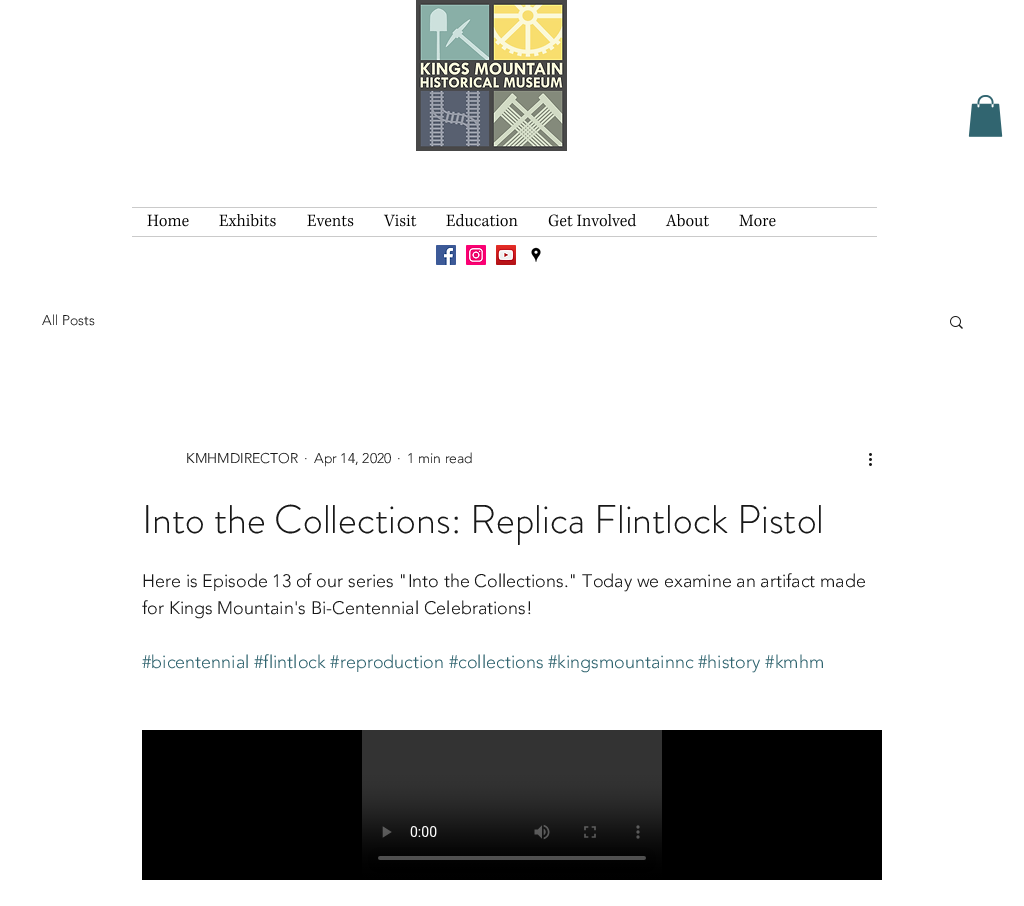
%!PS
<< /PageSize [1024 906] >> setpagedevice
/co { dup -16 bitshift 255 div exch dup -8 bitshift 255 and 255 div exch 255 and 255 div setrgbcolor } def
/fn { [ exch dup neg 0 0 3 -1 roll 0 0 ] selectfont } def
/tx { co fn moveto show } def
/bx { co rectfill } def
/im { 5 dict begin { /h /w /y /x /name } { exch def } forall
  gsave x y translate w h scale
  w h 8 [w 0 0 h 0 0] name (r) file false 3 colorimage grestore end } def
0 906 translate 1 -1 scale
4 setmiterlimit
0 0 1024 906 16#FFFFFF bx
(media/1.raw) 416 0 151 151 im
(media/2.raw) 968 95 35 42 im
132 207 745 1 16#CACACA bx
132 236 745 1 16#CACACA bx
(media/3.raw) 147 214 42 13 im
(media/4.raw) 219 214 57 13 im
(media/5.raw) 307 214 47 13 im
(media/6.raw) 383 214 34 13 im
(media/7.raw) 446 213 72 14 im
(media/8.raw) 548 213 89 14 im
(media/9.raw) 665 214 44 13 im
(media/10.raw) 739 214 37 13 im
(media/11.raw) 436 245 20 20 im
(media/12.raw) 466 245 20 20 im
(media/13.raw) 496 245 20 20 im
(media/14.raw) 531 247 10 15 im
(media/15.raw) 950 316 13 13 im
(media/16.raw) 869 453 3 13 im
(media/17.raw) 142 730 740 150 im
(All Posts) 42 325 /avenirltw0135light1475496-Light 14 16#181818 tx
(KMHMDIRECTOR) 186 463 /avenirltw0135light1475496-Light 14 16#181818 tx
(·) 304 463 /avenirltw0135light1475496-Light 14 16#181818 tx
(Apr 14, 2020) 314 463 /avenirltw0135light1475496-Light 14 16#181818 tx
(·) 397 463 /avenirltw0135light1475496-Light 14 16#181818 tx
(1 min read) 407 463 /avenirltw0135light1475496-Light 14 16#181818 tx
(Into the Collections: Replica Flintlock Pistol) 142 533 /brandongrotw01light-Light 40 16#181818 tx
(Here is Episode 13 of our series "Into the Collections." Today we examine an artifact made) 142 587 /avenirltw0135light1475496-Light 18 16#181818 tx
(for Kings Mountain's Bi-Centennial Celebrations!) 142 614 /avenirltw0135light1475496-Light 18 16#181818 tx
(#bicentennial #flintlock #reproduction #collections #kingsmountainnc #history #kmhm) 142 668 /avenirltw0135light1475496-Light 18 16#316570 tx
showpage
